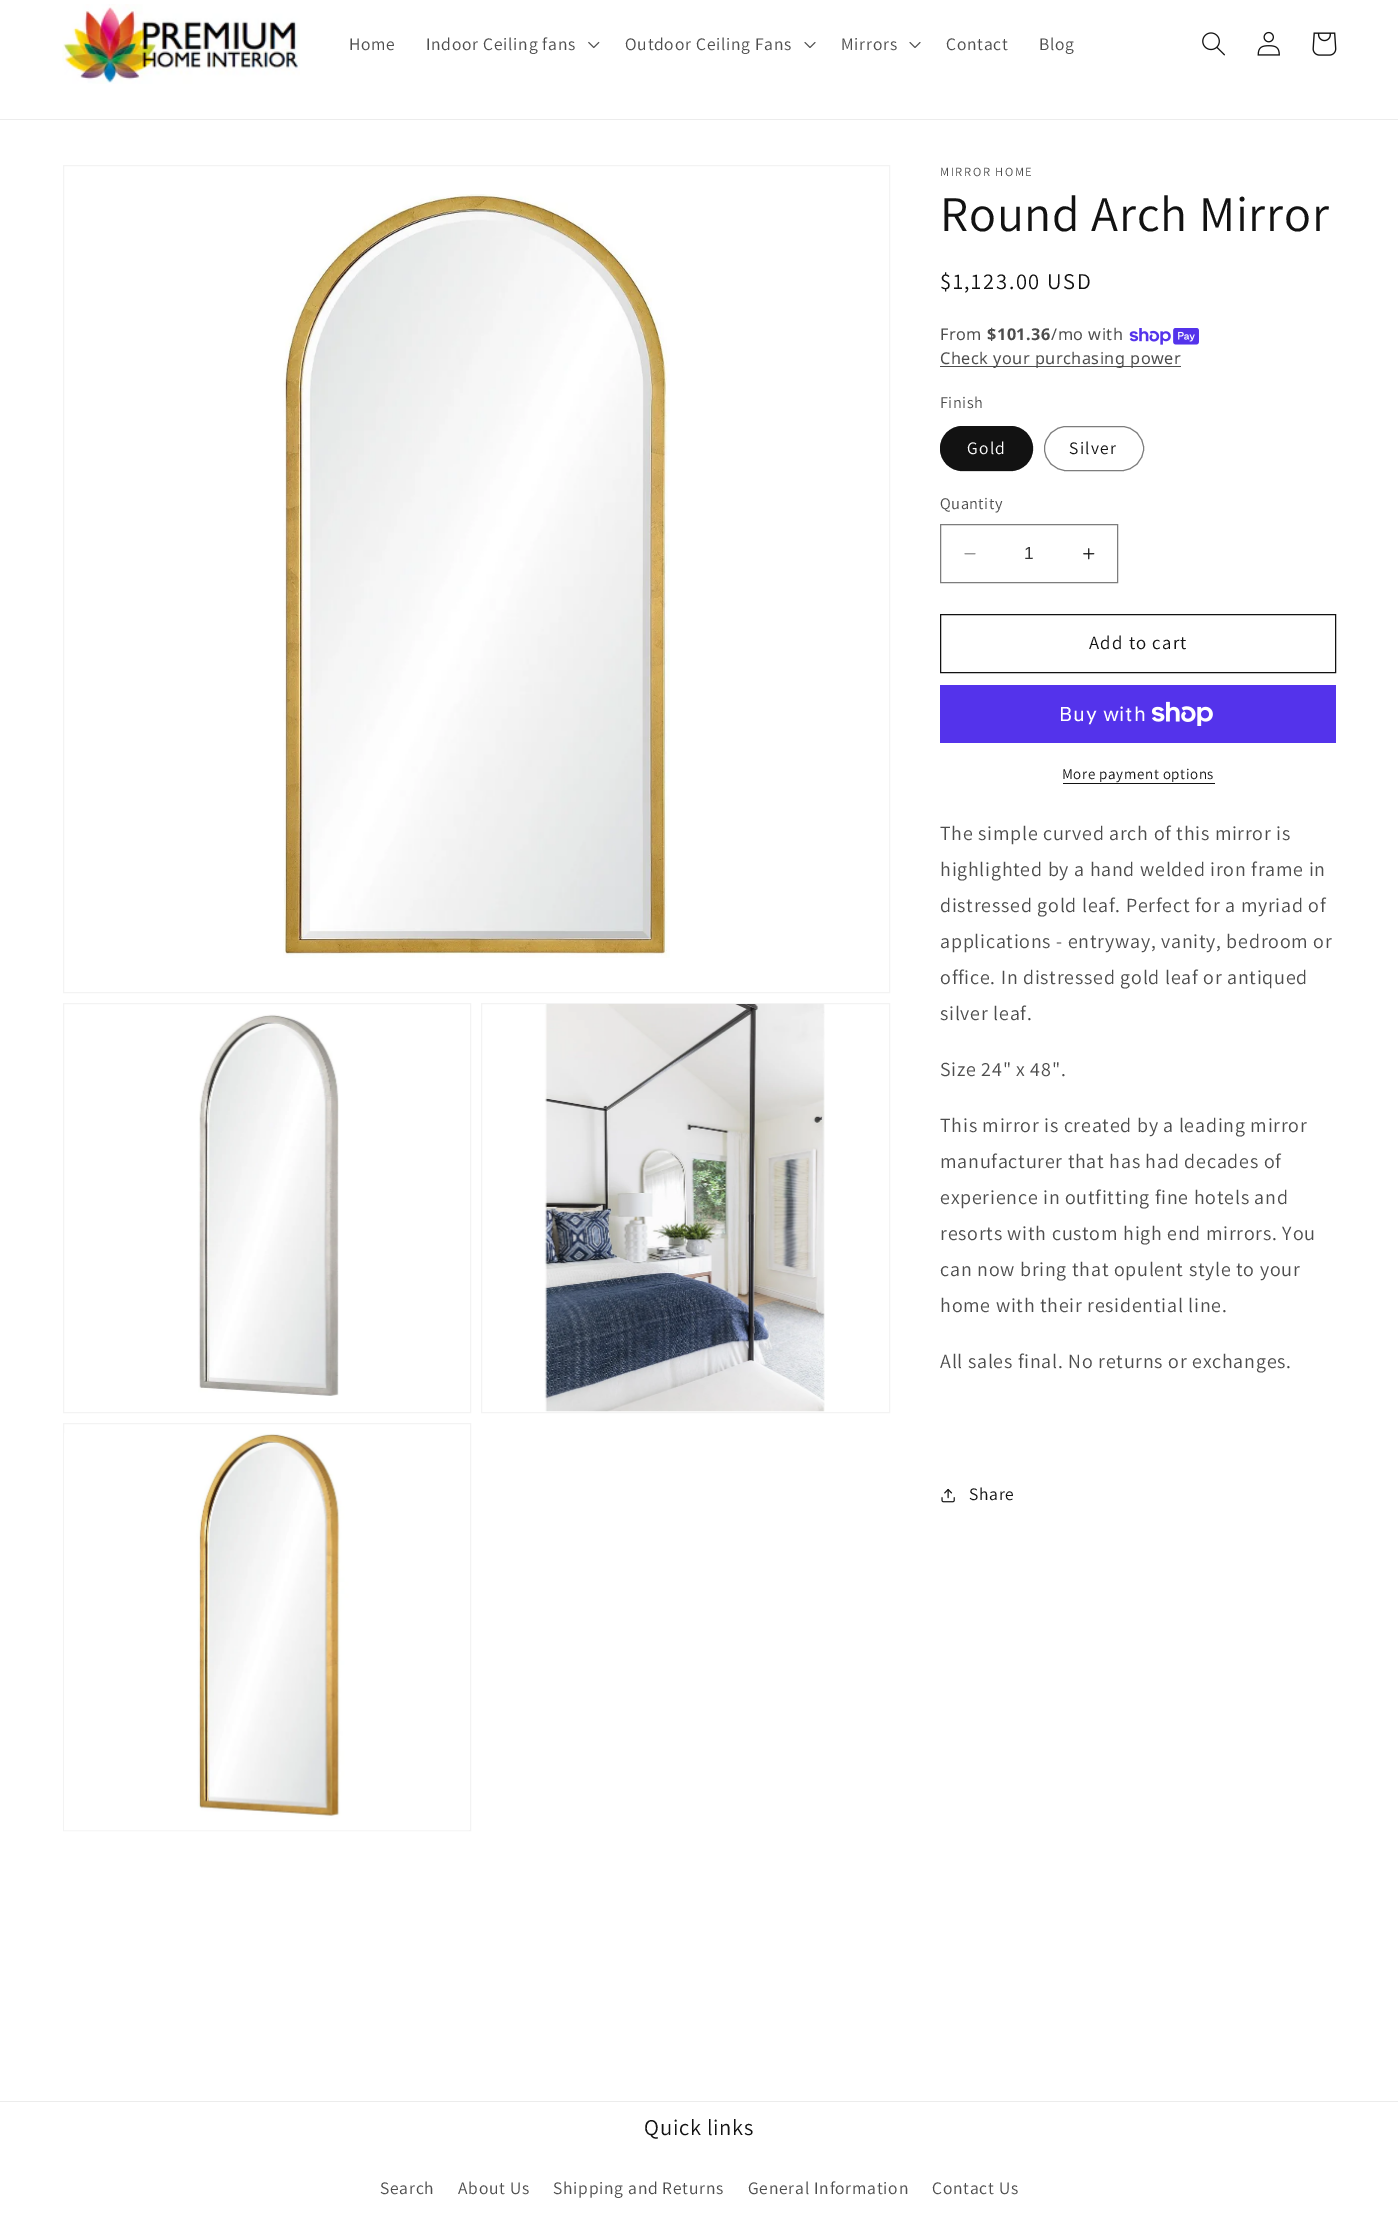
%!PS
<< /PageSize [1398 2217] /PageUsesTransparency true >> setpagedevice
/mt/moveto load def
/fl/fill load def
/st/stroke load def
/co { dup -16 bitshift 255 div exch dup -8 bitshift 255 and 255 div exch 255 and 255 div setrgbcolor } def
/fn { [ exch dup neg 0 0 3 -1 roll 0 0 ] selectfont } def
/tx { co fn moveto show } def
/bx { co rectfill } def
/al { dup .setfillconstantalpha .setstrokeconstantalpha } def
/rr { 5 dict begin { /r /h /w /y /x } { exch def } forall
  x r add y moveto x w add y 2 copy h add r arct x w add y h add x 1 index r arct
  x y h add x y r arct x y 2 copy exch w add exch r arct closepath end } def
/im { 5 dict begin { /h /w /y /x /name } { exch def } forall
  gsave x y translate w h scale
  w h 8 [w 0 0 h 0 0] name (r) file false 3 colorimage grestore end } def
0 .pushpdf14devicefilter
0 2217 translate 1 -1 scale
4 setmiterlimit
0 0 1398 2217 16#FFFFFF bx
0 119 1398 1 16#ECECEC bx
(media/1.raw) 62 4 238 80 im
(media/2.raw) 588 41 12 8 im
(media/3.raw) 804 42 12 6 im
(media/3.raw) 909 42 12 6 im
(media/4.raw) 1202 32 23 24 im
(media/5.raw) 1257 31 23 25 im
(media/6.raw) 1312 32 25 24 im
16#F3F3F3 co
63.5 165.5 826 827 rectstroke
(media/7.raw) 283 194 387 764 im
63.5 1003.5 407 409 rectstroke
(media/8.raw) 198 1014 141 382 im
481.5 1003.5 408 409 rectstroke
(media/9.raw) 544 1004 281 408 im
63.5 1423.5 407 407 rectstroke
(media/10.raw) 64 1433 405 398 im
(media/11.raw) 1129 328 70 17 im
940 366 241 1 16#4D4D4D bx
16#121212 co
940 426 93 45 22.5 rr fl
0.55 al
940.5 426.5 92 44 22 rr st
1 al
16#7D7D7D co
1044.5 426.5 99 44 22 rr st
(media/12.raw) 964 553 12 2 im
(media/13.raw) 1083 548 12 12 im
940.5 524.5 177 58 rectstroke
16#121212 co
940.5 614.5 395 58 rectstroke
940 685 396 58 16#5433EB bx
(media/14.raw) 1151 701 62 25 im
1063 783 152 1 16#121212 bx
(media/15.raw) 941 1488 14 15 im
0 2101 1398 1 16#ECECEC bx
/Assistant-Regular 17.5 fn
16#4D4D4D co
349 50 mt .75 0 (Home) ashow
426 50 mt .75 0 (Indoor Ceiling fans) ashow
625 50 mt .75 0 (Outdoor Ceiling Fans) ashow
841 50 mt .75 0 (Mirrors) ashow
946 50 mt .75 0 (Contact) ashow
1039 50 mt .75 0 (Blog) ashow
/Assistant-Regular 12.5 fn
940 176 mt 1.6 0 (MIRROR HOME) ashow
/Assistant-Regular 50 fn
16#121212 co
940 231 mt .75 0 (Round Arch Mirror) ashow
/Assistant-Regular 22.5 fn
940 289 mt 1.6 0 ($1,123.00 USD) ashow
/NotoSans-Regular 16.25 fn
16#4D4D4D co
940 340 mt .5 0 (From) ashow
/NotoSans-Bold 16.25 fn
987 340 mt .5 0 ($101.36) ashow
/NotoSans-Regular 16.25 fn
1051 340 mt .5 0 (/mo with) ashow
940 364 mt .5 0 (Check your purchasing power) ashow
/Assistant-Regular 16.25 fn
940 408 mt .5 0 (Finish) ashow
/Assistant-Regular 17.5 fn
16#FFFFFF co
967 454 mt 1.25 0 (Gold) ashow
16#121212 co
1069 454 mt 1.25 0 (Silver) ashow
/Assistant-Regular 16.25 fn
16#4D4D4D co
940 509 mt .5 0 (Quantity) ashow
(1) 1024 559 /LiberationSans-Regular 17.5 16#363636 tx
/Assistant-Regular 18.75 fn
16#121212 co
1089 649 mt 1.25 0 (Add to cart) ashow
/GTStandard-Regular 20 fn
16#FFFFFF co
1059 721 mt .75 0 (Buy with) ashow
/Assistant-Regular 15 fn
16#121212 co
1062 779 mt .6 0 (More payment options) ashow
/Assistant-Regular 20 fn
16#4D4D4D co
940 840 mt .75 0 (The simple curved arch of this mirror is) ashow
940 876 mt .75 0 (highlighted by a hand welded iron frame in) ashow
940 912 mt .75 0 (distressed gold leaf. Perfect for a myriad of) ashow
940 948 mt .75 0 (applications - entryway, vanity, bedroom or) ashow
940 984 mt .75 0 (office. In distressed gold leaf or antiqued) ashow
940 1020 mt .75 0 (silver leaf.) ashow
940 1076 mt .75 0 (Size 24" x 48".) ashow
940 1132 mt .75 0 (This mirror is created by a leading mirror) ashow
940 1168 mt .75 0 (manufacturer that has had decades of) ashow
940 1204 mt .75 0 (experience in outfitting fine hotels and) ashow
940 1240 mt .75 0 (resorts with custom high end mirrors. You) ashow
940 1276 mt .75 0 (can now bring that opulent style to your) ashow
940 1312 mt .75 0 (home with their residential line.) ashow
940 1368 mt .75 0 (All sales final. No returns or exchanges.) ashow
/Assistant-Regular 17.5 fn
16#121212 co
969 1500 mt .75 0 (Share) ashow
/Assistant-Regular 22.5 fn
644 2135 mt .75 0 (Quick links) ashow
/Assistant-Regular 17.5 fn
16#4D4D4D co
380 2194 mt .75 0 (Search) ashow
458 2194 mt .75 0 (About Us) ashow
553 2194 mt .75 0 (Shipping and Returns) ashow
748 2194 mt .75 0 (General Information) ashow
932 2194 mt .75 0 (Contact Us) ashow
.poppdf14devicefilter showpage
